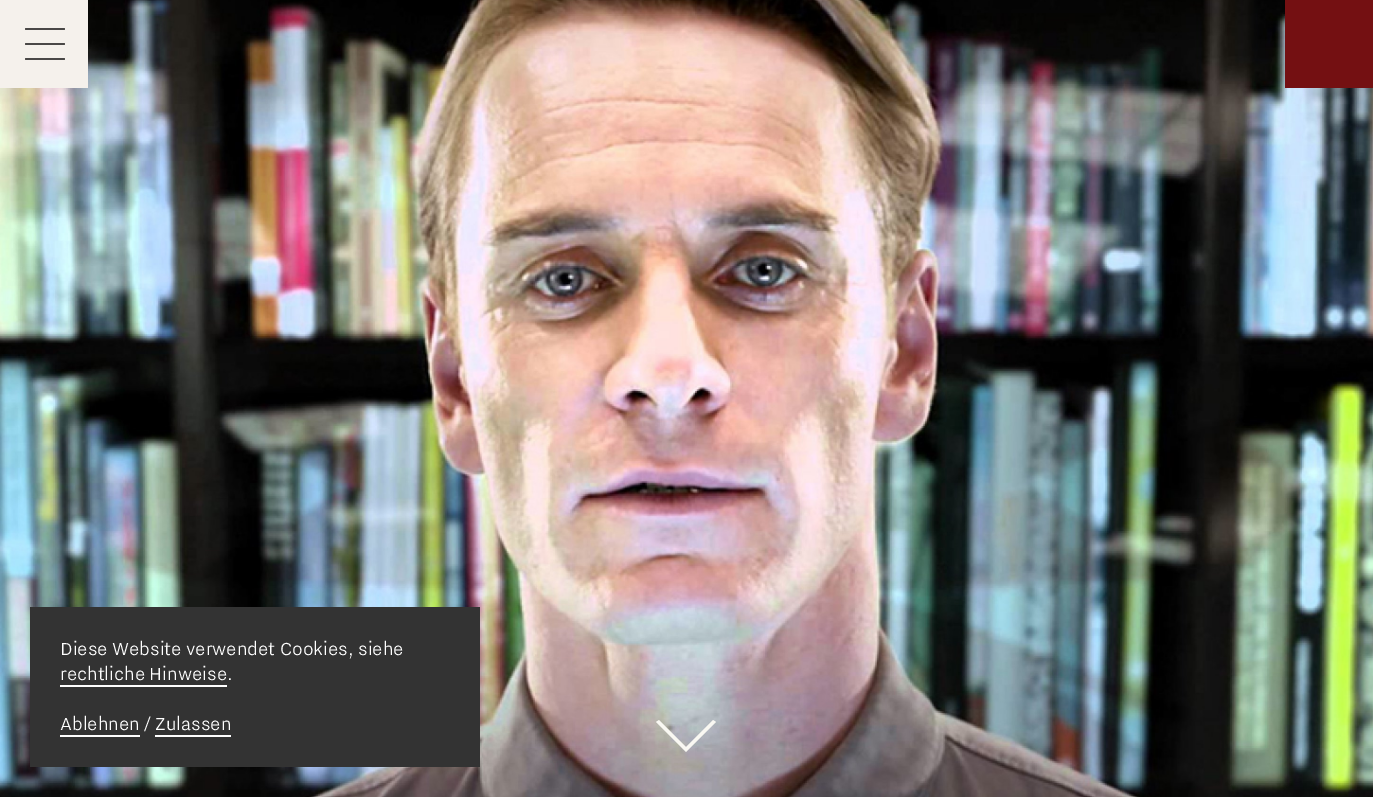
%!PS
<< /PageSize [1373 797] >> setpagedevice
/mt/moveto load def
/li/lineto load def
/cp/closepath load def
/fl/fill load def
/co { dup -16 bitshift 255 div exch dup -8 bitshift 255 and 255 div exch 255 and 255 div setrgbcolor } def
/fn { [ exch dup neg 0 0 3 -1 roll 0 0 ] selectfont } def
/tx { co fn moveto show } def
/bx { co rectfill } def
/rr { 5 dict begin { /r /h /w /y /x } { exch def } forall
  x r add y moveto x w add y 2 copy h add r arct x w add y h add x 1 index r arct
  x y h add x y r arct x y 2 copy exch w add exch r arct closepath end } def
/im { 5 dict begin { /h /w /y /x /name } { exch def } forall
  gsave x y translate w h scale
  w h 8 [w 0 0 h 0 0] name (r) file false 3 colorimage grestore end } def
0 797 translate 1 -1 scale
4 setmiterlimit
0 0 1373 797 16#FFFFFF bx
(media/1.raw) 0 0 1373 797 im
16#F9F8F2 co
686 747 mt 713 720 li 716 722 li 686 752 li 656 722 li 659 720 li cp fl
0 0 88 88 16#F5F1EC bx
16#4A4847 co
25 43 40 2 1 rr fl
25 28 40 2 1 rr fl
25 58 40 2 1 rr fl
1285 0 88 88 16#741012 bx
30 607 450 160 16#333333 bx
60 685 167 2 16#FFFFFF bx
60 735 80 2 16#FFFFFF bx
155 735 76 2 16#FFFFFF bx
(Diese Website verwendet Cookies, siehe) 60 655 /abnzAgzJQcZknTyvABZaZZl-Light 22 16#FFFFFF tx
(rechtliche Hinweise.) 60 680 /abnzAgzJQcZknTyvABZaZZl-Light 22 16#FFFFFF tx
(Ablehnen / Zulassen) 60 730 /abnzAgzJQcZknTyvABZaZZl-Light 22 16#FFFFFF tx
showpage
